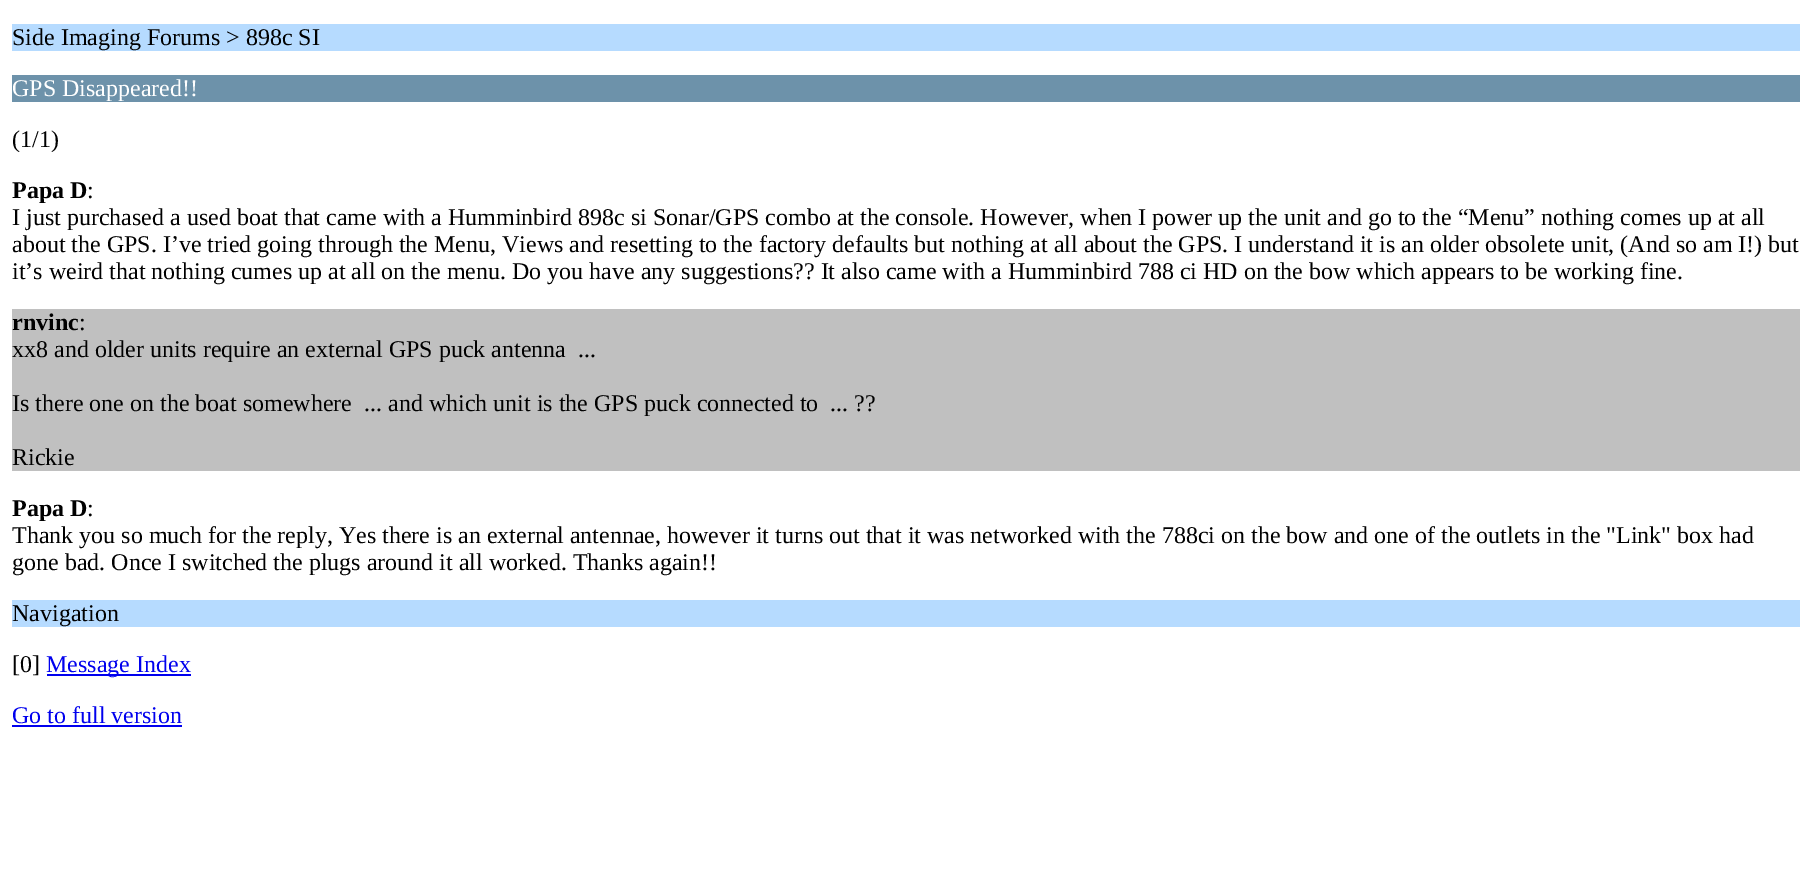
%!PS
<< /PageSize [1811 876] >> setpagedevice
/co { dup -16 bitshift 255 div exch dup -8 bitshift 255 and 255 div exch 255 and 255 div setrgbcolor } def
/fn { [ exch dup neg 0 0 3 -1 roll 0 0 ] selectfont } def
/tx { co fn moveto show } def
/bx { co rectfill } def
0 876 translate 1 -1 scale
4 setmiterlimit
0 0 1811 876 16#FFFFFF bx
12 24 1788 27 16#B6DBFF bx
12 75 1788 27 16#6D92AA bx
12 309 1788 162 16#C0C0C0 bx
12 600 1788 27 16#B6DBFF bx
47 674 144 2 16#0000EE bx
12 725 170 2 16#0000EE bx
(Side Imaging Forums > 898c SI) 12 45 /LiberationSerif-Regular 24 16#000000 tx
(GPS Disappeared!!) 12 96 /LiberationSerif-Regular 24 16#FFFFFF tx
(\(1/1\)) 12 147 /LiberationSerif-Regular 24 16#000000 tx
(Papa D) 12 198 /LiberationSerif-Bold 24 16#000000 tx
(:) 87 198 /LiberationSerif-Regular 24 16#000000 tx
(I just purchased a used boat that came with a Humminbird 898c si Sonar/GPS combo at the console. However, when I power up the unit and go to the “Menu” nothing comes up at all) 12 225 /LiberationSerif-Regular 24 16#000000 tx
(about the GPS. I’ve tried going through the Menu, Views and resetting to the factory defaults but nothing at all about the GPS. I understand it is an older obsolete unit, \(And so am I!\) but) 12 252 /LiberationSerif-Regular 24 16#000000 tx
(it’s weird that nothing cumes up at all on the menu. Do you have any suggestions?? It also came with a Humminbird 788 ci HD on the bow which appears to be working fine.) 12 279 /LiberationSerif-Regular 24 16#000000 tx
(rnvinc) 12 330 /LiberationSerif-Bold 24 16#000000 tx
(:) 79 330 /LiberationSerif-Regular 24 16#000000 tx
(xx8 and older units require an external GPS puck antenna  ...) 12 357 /LiberationSerif-Regular 24 16#000000 tx
(Is there one on the boat somewhere  ... and which unit is the GPS puck connected to  ... ??) 12 411 /LiberationSerif-Regular 24 16#000000 tx
(Rickie) 12 465 /LiberationSerif-Regular 24 16#000000 tx
(Papa D) 12 516 /LiberationSerif-Bold 24 16#000000 tx
(:) 87 516 /LiberationSerif-Regular 24 16#000000 tx
(Thank you so much for the reply, Yes there is an external antennae, however it turns out that it was networked with the 788ci on the bow and one of the outlets in the "Link" box had) 12 543 /LiberationSerif-Regular 24 16#000000 tx
(gone bad. Once I switched the plugs around it all worked. Thanks again!!) 12 570 /LiberationSerif-Regular 24 16#000000 tx
(Navigation) 12 621 /LiberationSerif-Regular 24 16#000000 tx
([0]) 12 672 /LiberationSerif-Regular 24 16#000000 tx
(Message Index) 46 672 /LiberationSerif-Regular 24 16#0000EE tx
(Go to full version) 12 723 /LiberationSerif-Regular 24 16#0000EE tx
showpage
